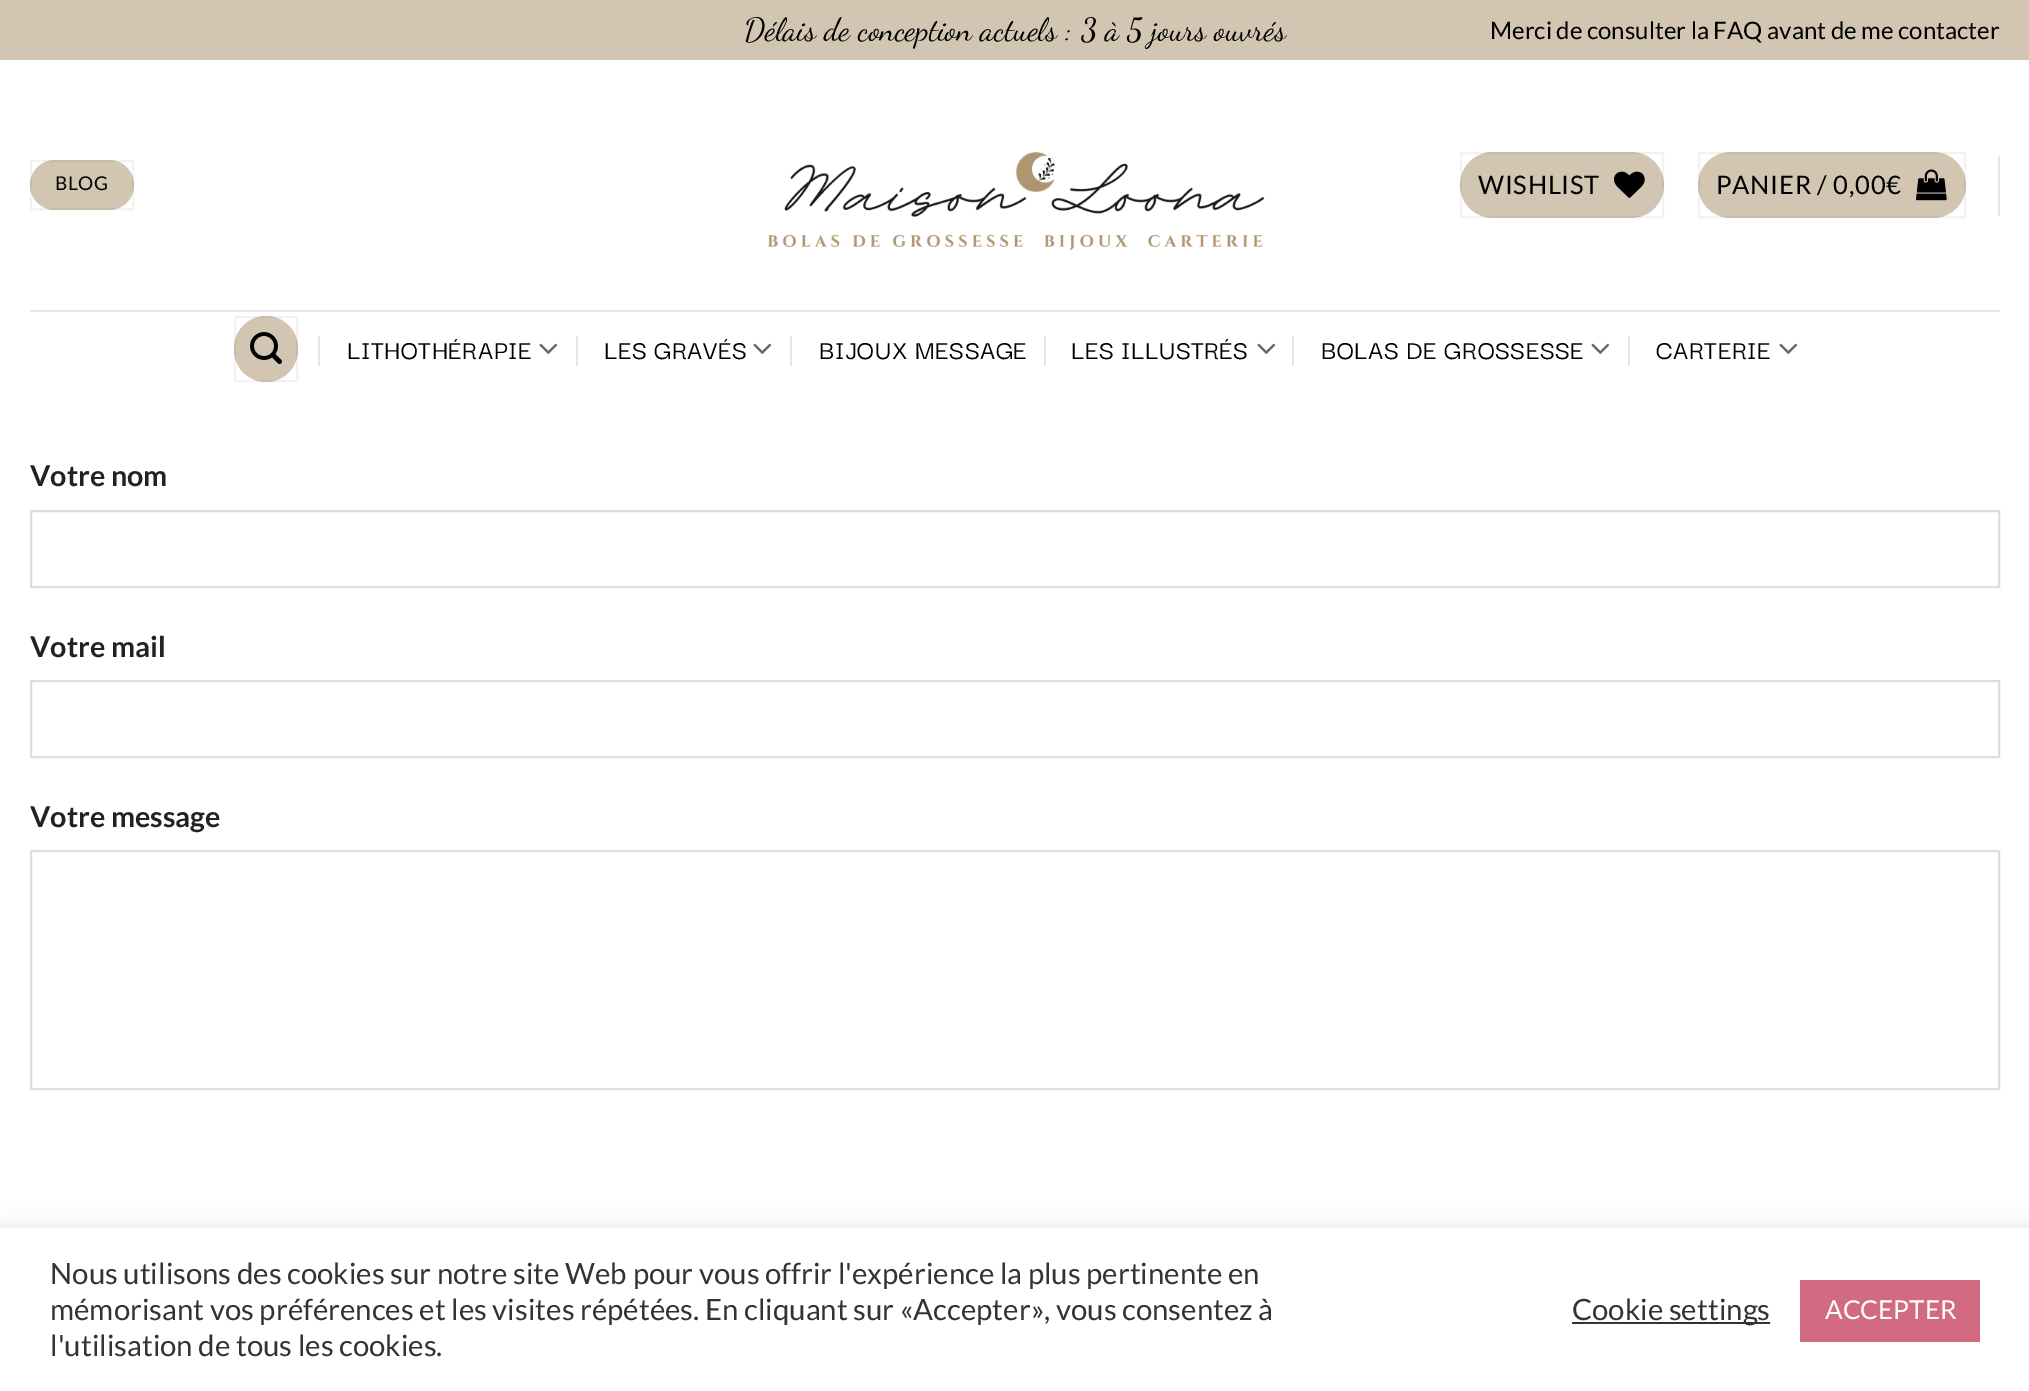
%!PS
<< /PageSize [2029 1391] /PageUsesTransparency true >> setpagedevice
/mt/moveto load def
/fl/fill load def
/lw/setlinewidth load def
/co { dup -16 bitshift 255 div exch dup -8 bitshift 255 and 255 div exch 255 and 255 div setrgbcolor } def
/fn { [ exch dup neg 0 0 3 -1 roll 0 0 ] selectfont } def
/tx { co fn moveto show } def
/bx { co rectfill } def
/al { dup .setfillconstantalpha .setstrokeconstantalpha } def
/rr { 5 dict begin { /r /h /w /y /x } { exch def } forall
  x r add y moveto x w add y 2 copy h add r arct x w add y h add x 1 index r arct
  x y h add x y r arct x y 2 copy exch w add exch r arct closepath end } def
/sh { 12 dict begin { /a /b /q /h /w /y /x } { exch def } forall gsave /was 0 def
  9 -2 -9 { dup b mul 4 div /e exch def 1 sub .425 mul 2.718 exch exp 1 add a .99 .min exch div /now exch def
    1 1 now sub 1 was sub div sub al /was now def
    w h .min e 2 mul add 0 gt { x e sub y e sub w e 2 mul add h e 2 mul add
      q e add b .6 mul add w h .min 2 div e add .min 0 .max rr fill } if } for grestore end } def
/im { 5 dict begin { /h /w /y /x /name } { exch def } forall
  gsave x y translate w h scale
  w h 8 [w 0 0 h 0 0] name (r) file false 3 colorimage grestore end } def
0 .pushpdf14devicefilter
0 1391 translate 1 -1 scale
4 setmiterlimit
0 0 2029 1391 16#FFFFFF bx
0 0 2029 60 16#D2C5B2 bx
30 160 104 50 25 rr fl
0.05 al
16#000000 co
2 lw
31 161 102 48 rectstroke
1 al
(media/1.raw) 768 152 497 99 im
16#D2C5B2 co
1460 152 204 66 33 rr fl
0.05 al
16#000000 co
1461 153 202 64 rectstroke
1 al
(media/2.raw) 1614 171 31 27 im
16#D2C5B2 co
1698 152 268 66 33 rr fl
0.05 al
16#000000 co
1699 153 266 64 rectstroke
1 al
(media/3.raw) 1916 169 31 32 im
1998 156 2 60 16#E6E6E6 bx
30 310 1970 2 16#E6E6E6 bx
16#D2C5B2 co
234 316 64 66 32 rr fl
0.05 al
16#000000 co
235 317 62 64 rectstroke
1 al
(media/4.raw) 250 332 32 32 im
318 336 2 30 16#E6E6E6 bx
(media/5.raw) 539 343 19 11 im
576 336 2 30 16#E6E6E6 bx
(media/5.raw) 753 343 19 11 im
790 336 2 30 16#E6E6E6 bx
1044 336 2 30 16#E6E6E6 bx
(media/5.raw) 1257 343 19 11 im
1292 336 2 30 16#E6E6E6 bx
(media/5.raw) 1591 343 19 11 im
1628 336 2 30 16#E6E6E6 bx
(media/5.raw) 1779 343 19 11 im
16#DDDDDD co
31 511 1968 76 rectstroke
31 681 1968 76 rectstroke
31 851 1968 238 rectstroke
16#ACABAB co
0 1226 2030 164 0 10 .3 sh
0 1228 2029 163 16#FFFFFF bx
1572 1322 198 2 16#333333 bx
1800 1280 180 62 16#D26A81 bx
(Délais de conception actuels : 3 à 5 jours ouvrés) 744 40 /DancingScript-Regular 32 16#000000 tx
(Merci de consulter la FAQ avant de me contacter) 1490 39 /Lato-Regular 24 16#000000 tx
/Lato-Regular 19 fn
55 190 mt .5 0 (BLOG) ashow
/Lato-Regular 25.5 fn
1478 194 mt .75 0 (WISHLIST) ashow
1716 194 mt .75 0 (PANIER / 0,00€) ashow
/DarkerGrotesque-Medium 28 fn
347 359 mt .6 0 (LITHOTHÉRAPIE) ashow
604 359 mt .6 0 (LES GRAVÉS) ashow
819 359 mt .6 0 (BIJOUX MESSAGE) ashow
1071 359 mt .6 0 (LES ILLUSTRÉS) ashow
1321 359 mt .6 0 (BOLAS DE GROSSESSE) ashow
1656 359 mt .6 0 (CARTERIE) ashow
(Votre nom) 30 486 /Lato-Bold 28.75 16#222222 tx
(Votre mail) 30 657 /Lato-Bold 28.75 16#222222 tx
(Votre message) 30 827 /Lato-Bold 28.75 16#222222 tx
(Nous utilisons des cookies sur notre site Web pour vous offrir l'expérience la plus pertinente en) 50 1284 /Lato-Regular 29.35 16#333333 tx
(mémorisant vos préférences et les visites répétées. En cliquant sur «Accepter», vous consentez à) 50 1320 /Lato-Regular 29.35 16#333333 tx
(l'utilisation de tous les cookies.) 50 1356 /Lato-Regular 29.35 16#333333 tx
(Cookie settings) 1572 1320 /Lato-Regular 29.35 16#333333 tx
(ACCEPTER) 1825 1319 /Lato-Regular 26 16#FFFFFF tx
.poppdf14devicefilter showpage
